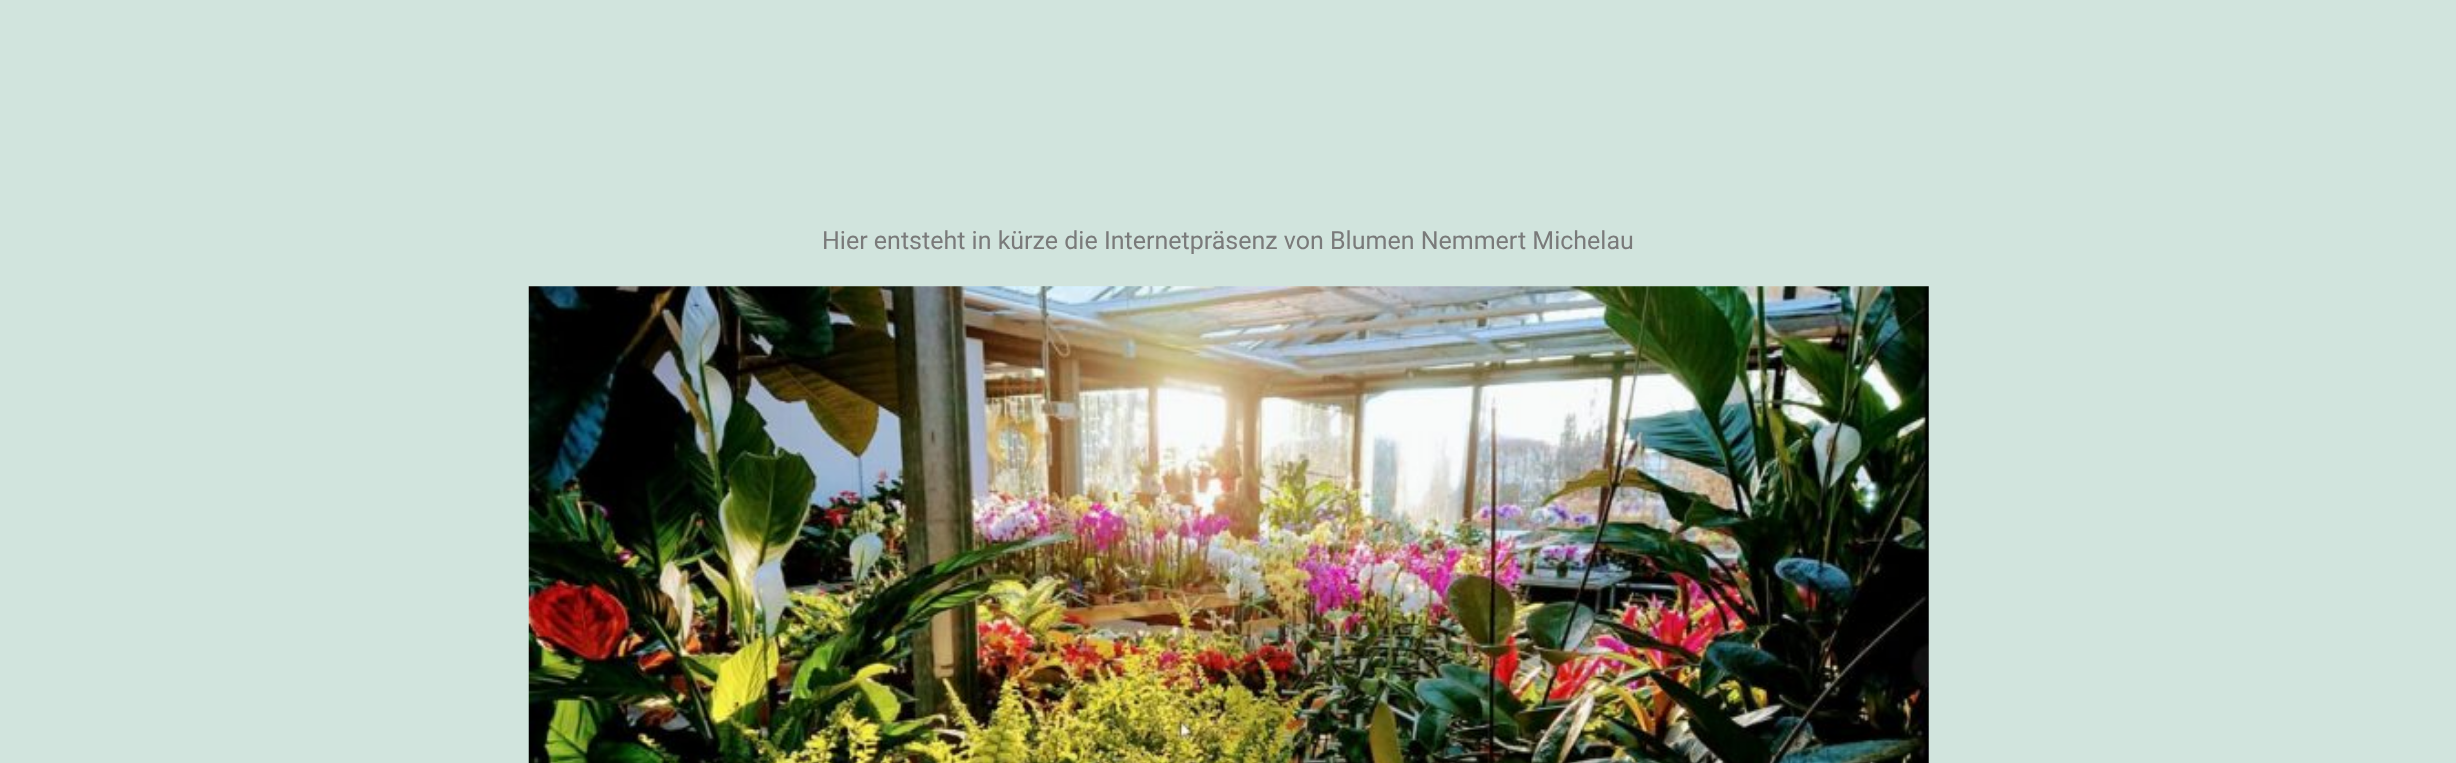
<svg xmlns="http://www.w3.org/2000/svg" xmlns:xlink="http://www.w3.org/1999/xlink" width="2456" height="763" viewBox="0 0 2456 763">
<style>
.cls-1{font:25px Roboto;fill:#7a7a7a}
</style>
<rect width="100%" height="100%" fill="#d1e4dd"/>
<image xlink:href="image0.png" x="528" y="286" width="1401" height="477"/>
<text class="cls-1" x="822" y="249">Hier entsteht in kürze die Internetpräsenz von Blumen Nemmert Michelau</text>
</svg>
